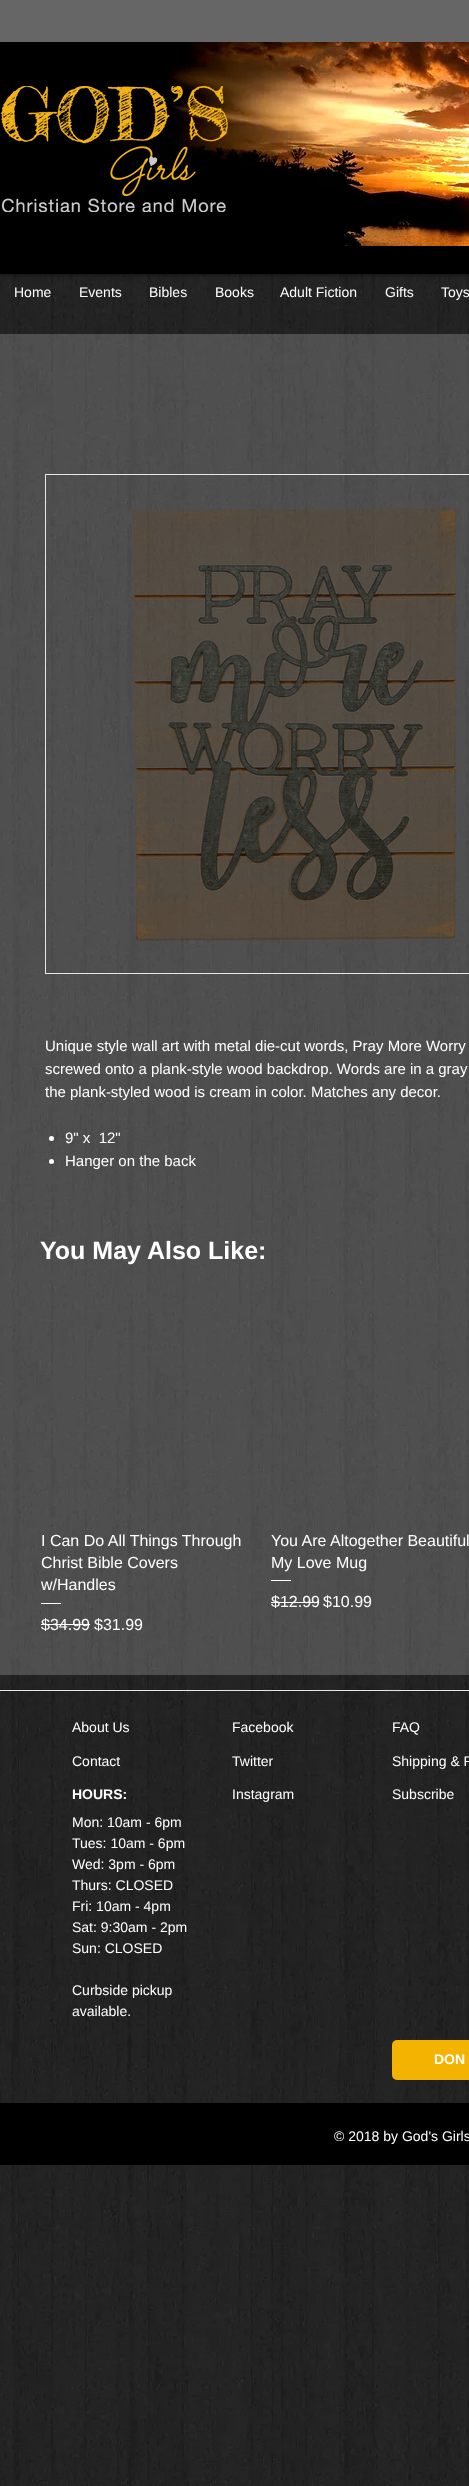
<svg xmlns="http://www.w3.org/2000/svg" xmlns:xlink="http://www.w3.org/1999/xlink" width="469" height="2486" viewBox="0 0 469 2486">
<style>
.cls-1{font:14px Liberation Sans;fill:#ffffff}
.cls-2{font:15px Liberation Sans;fill:#ffffff}
.cls-3{font:bold 25px Liberation Sans;fill:#ffffff}
.cls-4{font:16px Liberation Sans;fill:#ffffff}
.cls-5{font:bold 14px Liberation Sans;fill:#ffffff}
</style>
<rect width="100%" height="100%" fill="#ffffff"/>
<image xlink:href="image0.png" x="0" y="274" width="469" height="2212"/>
<rect fill="#000000" fill-opacity="0.7" filter="blur(2.5px)" x="0" y="0" width="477" height="274"/>
<rect fill="#000000" x="0" y="42" width="469" height="232"/>
<rect fill="#666666" x="0" y="0" width="469" height="42"/>
<image xlink:href="image2.png" x="168" y="42" width="301" height="204"/>
<image xlink:href="image1.png" x="0" y="86" width="228" height="126"/>
<rect fill="#ffffff" fill-opacity="0.2" x="0" y="334" width="469" height="883"/>
<rect fill="none" stroke="#e8e6e6" x="45.5" y="474.5" width="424" height="499"/>
<image xlink:href="image3.png" x="132" y="508" width="324" height="434"/>
<circle fill="#ffffff" cx="51.5" cy="1138.5" r="2.5"/>
<circle fill="#ffffff" cx="51.5" cy="1161.5" r="2.5"/>
<rect fill="#ffffff" fill-opacity="0.2" x="0" y="1217" width="469" height="458"/>
<rect fill="#ffffff" x="41" y="1603" width="20" height="1"/>
<rect fill="#ffffff" x="41" y="1624" width="49" height="1"/>
<rect fill="#ffffff" x="271" y="1580" width="20" height="1"/>
<rect fill="#ffffff" x="271" y="1602" width="48" height="1"/>
<rect fill="#e8e6e6" x="0" y="1690" width="469" height="1"/>
<rect fill="#f4b300" x="392" y="2040" width="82" height="40" rx="5"/>
<rect fill="#000000" x="0" y="2103" width="469" height="62"/>
<text class="cls-1" x="14" y="297">Home</text>
<text class="cls-1" x="79" y="297">Events</text>
<text class="cls-1" x="149" y="297">Bibles</text>
<text class="cls-1" x="215" y="297">Books</text>
<text class="cls-1" x="280" y="297">Adult Fiction</text>
<text class="cls-1" x="385" y="297">Gifts</text>
<text class="cls-1" x="441" y="297">Toys</text>
<text class="cls-2"><tspan x="45" y="1051">Unique style wall art with metal die-cut words, Pray More Worry</tspan><tspan x="45" y="1074">screwed onto a plank-style wood backdrop. Words are in a gray</tspan><tspan x="45" y="1097">the plank-styled wood is cream in color. Matches any decor.</tspan></text>
<text class="cls-2" xml:space="preserve"><tspan x="65" y="1143">9" x  12"</tspan><tspan x="65" y="1166">Hanger on the back</tspan></text>
<text class="cls-3" x="40" y="1259">You May Also Like:</text>
<text class="cls-4"><tspan x="41" y="1546">I Can Do All Things Through</tspan><tspan x="41" y="1568">Christ Bible Covers</tspan><tspan x="41" y="1590">w/Handles</tspan></text>
<text class="cls-4" x="41" y="1630">$34.99</text>
<text class="cls-4" x="94" y="1630">$31.99</text>
<text class="cls-4"><tspan x="271" y="1546">You Are Altogether Beautiful</tspan><tspan x="271" y="1568">My Love Mug</tspan></text>
<text class="cls-4" x="271" y="1607">$12.99</text>
<text class="cls-4" x="323" y="1607">$10.99</text>
<text class="cls-1" x="72" y="1732">About Us</text>
<text class="cls-1" x="72" y="1766">Contact</text>
<text class="cls-5" x="72" y="1799">HOURS:</text>
<text class="cls-1"><tspan x="72" y="1827">Mon: 10am - 6pm</tspan><tspan x="72" y="1848">Tues: 10am - 6pm</tspan><tspan x="72" y="1869">Wed: 3pm - 6pm</tspan><tspan x="72" y="1890">Thurs: CLOSED</tspan><tspan x="72" y="1911">Fri: 10am - 4pm</tspan><tspan x="72" y="1932">Sat: 9:30am - 2pm</tspan><tspan x="72" y="1953">Sun: CLOSED</tspan></text>
<text class="cls-1"><tspan x="72" y="1995">Curbside pickup</tspan><tspan x="72" y="2016">available.</tspan></text>
<text class="cls-1" x="232" y="1732">Facebook</text>
<text class="cls-1" x="232" y="1766">Twitter</text>
<text class="cls-1" x="232" y="1799">Instagram</text>
<text class="cls-1" x="392" y="1732">FAQ</text>
<text class="cls-1" x="392" y="1766">Shipping &amp; R</text>
<text class="cls-1" x="392" y="1799">Subscribe</text>
<text class="cls-5" x="434" y="2064">DON</text>
<text class="cls-1" x="334" y="2141">© 2018 by God's Girls</text>
</svg>
